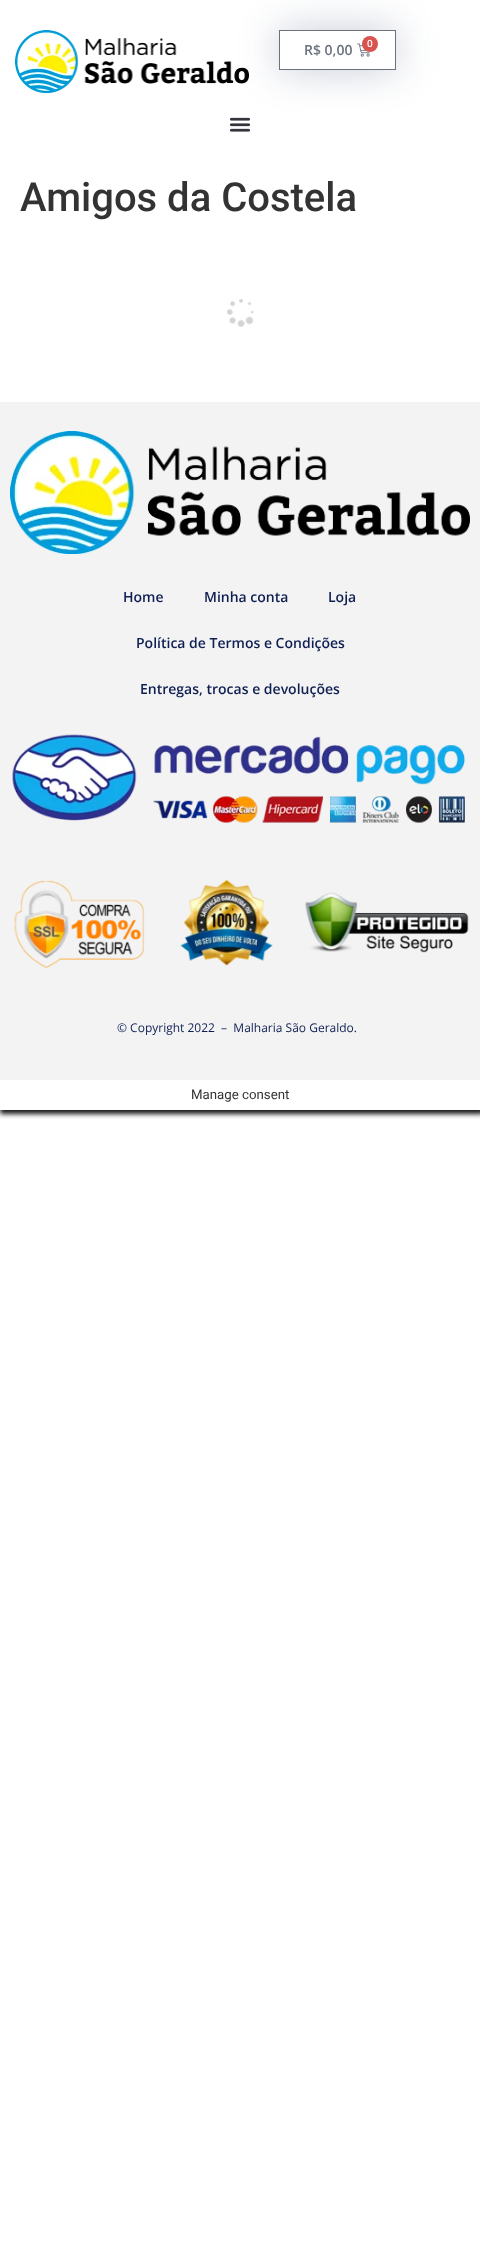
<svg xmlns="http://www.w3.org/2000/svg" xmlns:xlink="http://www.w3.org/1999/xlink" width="480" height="2265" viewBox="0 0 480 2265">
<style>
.cls-1{font:600 14px Open Sans;fill:#69727d}
.cls-2{font:600 10px Open Sans;fill:#ffffff}
.cls-3{font:500 40px Roboto;fill:#333333}
.cls-4{font:600 14px Open Sans;fill:#0f1f52}
.cls-5{font:12px Open Sans;fill:#0f1f52}
.cls-6{font:13.25px Roboto;fill:#333333}
</style>
<defs>
<clipPath id="clip1"><path d="M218 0H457V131H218ZM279 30H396V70H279Z" clip-rule="evenodd"/></clipPath>
<clipPath id="clip2"><rect x="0" y="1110" width="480" height="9"/></clipPath>
</defs>
<rect width="100%" height="100%" fill="#ffffff"/>
<image xlink:href="image0.png" x="15" y="30" width="234" height="63"/>
<g clip-path="url(#clip1)">
<rect fill="#0f1f52" fill-opacity="0.23" filter="blur(20px)" x="279" y="30" width="117" height="40"/>
</g>
<rect fill="none" stroke="#69727d" x="279.5" y="30.5" width="116" height="39"/>
<image xlink:href="image1.png" x="357" y="43" width="13" height="14"/>
<circle fill="#d9534f" cx="370" cy="44" r="8"/>
<image xlink:href="image2.png" x="229" y="117" width="22" height="15"/>
<image xlink:href="image3.png" x="227" y="299" width="27" height="28"/>
<g clip-path="url(#clip2)">
<rect fill="#161616" filter="blur(2.5px)" x="0" y="1080" width="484" height="34"/>
</g>
<rect fill="#f3f3f3" x="0" y="402" width="480" height="678"/>
<image xlink:href="image4.png" x="10" y="431" width="460" height="123"/>
<image xlink:href="image5.png" x="12" y="734" width="453" height="89"/>
<image xlink:href="image6.png" x="14" y="879" width="455" height="90"/>
<text class="cls-1" x="304" y="55">R$ 0,00</text>
<text class="cls-2" x="367" y="47">0</text>
<text class="cls-3" x="20" y="211">Amigos da Costela</text>
<text class="cls-4" x="123" y="602">Home</text>
<text class="cls-4" x="204" y="602">Minha conta</text>
<text class="cls-4" x="328" y="602">Loja</text>
<text class="cls-4" x="136" y="648">Política de Termos e Condições</text>
<text class="cls-4" x="140" y="694">Entregas, trocas e devoluções</text>
<text class="cls-5" xml:space="preserve" x="117" y="1032">© Copyright 2022  –  Malharia São Geraldo.</text>
<text class="cls-6" x="191" y="1099">Manage consent</text>
</svg>
